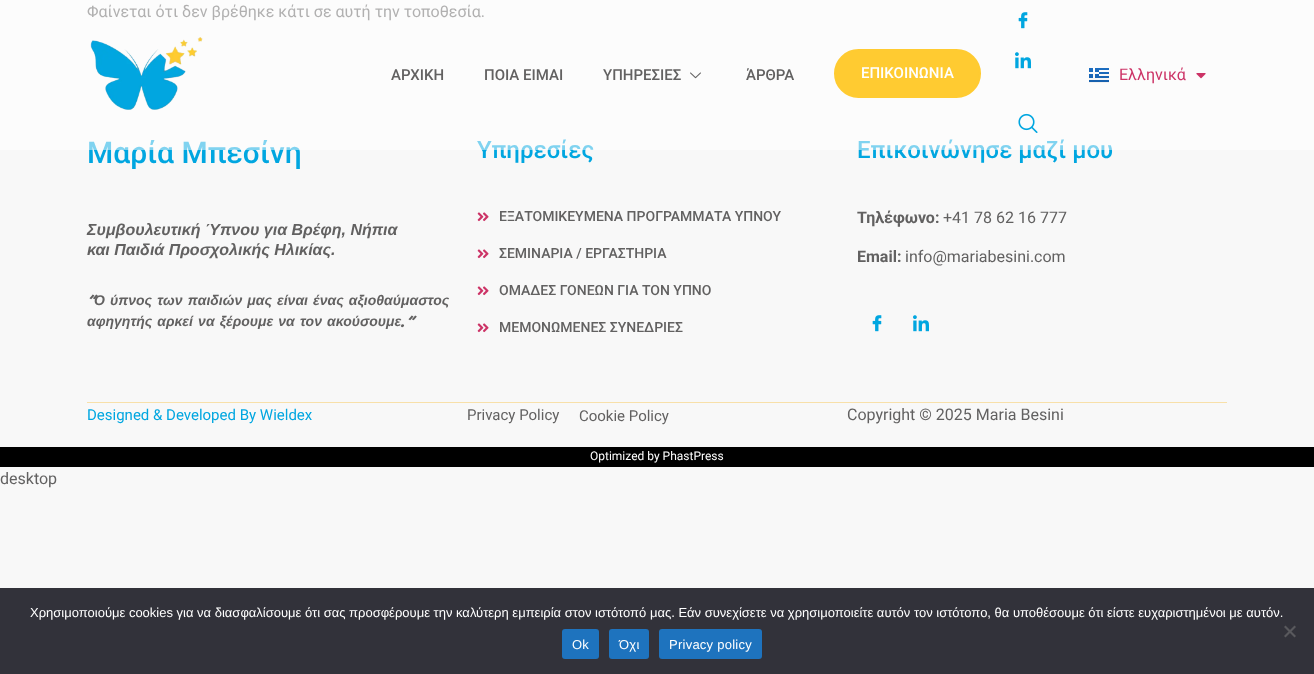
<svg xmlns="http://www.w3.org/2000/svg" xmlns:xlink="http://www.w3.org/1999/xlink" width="1314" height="674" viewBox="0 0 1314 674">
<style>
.cls-1{font:16px Roboto;fill:#626161}
.cls-2{font:500 30px Roboto;fill:#00a6e0}
.cls-3{font:italic bold 16px Liberation Sans;fill:#626161}
.cls-4{font:italic bold 14px Vampiro One;fill:#626161}
.cls-5{font:italic bold 14px Liberation Sans;fill:#626161}
.cls-6{font:500 24px Roboto;fill:#00a6e0}
.cls-7{font:500 14px Roboto;fill:#626161}
.cls-8{font:500 15px Roboto;fill:#626161}
.cls-9{font:16px Roboto;fill:#cc3366}
.cls-10{font:500 15px Roboto;fill:#ffffff}
.cls-11{font:bold 16px Roboto;fill:#626161}
.cls-12{font:15px Roboto;fill:#00a6e0}
.cls-13{font:15px Roboto;fill:#626161}
.cls-14{font:12px Roboto;fill:#ffffff}
.cls-15{font:13px Liberation Sans;fill:#ffffff}
.cls-16{font:13px Liberation Sans;letter-spacing:0.25px;fill:#ffffff}
</style>
<rect width="100%" height="100%" fill="#f8f8f8"/>
<rect fill="#f8e0a9" x="87" y="402" width="1140" height="1"/>
<image xlink:href="image7.png" x="477" y="212" width="12" height="10"/>
<image xlink:href="image7.png" x="477" y="249" width="12" height="10"/>
<image xlink:href="image7.png" x="477" y="286" width="12" height="10"/>
<image xlink:href="image7.png" x="477" y="323" width="12" height="10"/>
<image xlink:href="image8.png" x="872" y="315" width="10" height="17"/>
<image xlink:href="image9.png" x="913" y="315" width="16" height="17"/>
<rect fill="#000000" x="0" y="447" width="1314" height="20"/>
<rect fill="#32323a" x="0" y="588" width="1314" height="86"/>
<path fill="#59595d" d="M1294.5 625.5L1296 627L1285.5 637.5L1284 636Z"/>
<path fill="#59595d" d="M1284 627L1285.5 625.5L1296 636L1294.5 637.5Z"/>
<rect fill="#1e73be" x="562" y="629" width="37" height="30" rx="3"/>
<rect fill="#1e73be" x="609" y="629" width="40" height="30" rx="3"/>
<rect fill="#1e73be" x="659" y="629" width="103" height="30" rx="3"/>
<text class="cls-1" x="87" y="17">Φαίνεται ότι δεν βρέθηκε κάτι σε αυτή την τοποθεσία.</text>
<text class="cls-2" x="87" y="163">Μαρία Μπεσίνη</text>
<text class="cls-3"><tspan x="87" y="235">Συμβουλευτική Ύπνου για Βρέφη, Νήπια</tspan><tspan x="87" y="255">και Παιδιά Προσχολικής Ηλικίας.</tspan></text>
<text class="cls-4" x="87" y="305">"</text>
<text class="cls-5" x="94" y="305" word-spacing="1.25">Ο ύπνος των παιδιών μας είναι ένας αξιοθαύμαστος</text>
<text class="cls-5" x="87" y="326" word-spacing="1.25">αφηγητής αρκεί να ξέρουμε να τον ακούσουμε</text>
<text class="cls-4" x="401" y="326">."</text>
<text class="cls-6" x="477" y="158">Υπηρεσίες</text>
<text class="cls-7" x="499" y="221">ΕΞΑΤΟΜΙΚΕΥΜΕΝΑ ΠΡΟΓΡΑΜΜΑΤΑ ΥΠΝΟΥ</text>
<text class="cls-7" x="499" y="258">ΣΕΜΙΝΑΡΙΑ / ΕΡΓΑΣΤΗΡΙΑ</text>
<text class="cls-7" x="499" y="295">ΟΜΑΔΕΣ ΓΟΝΕΩΝ ΓΙΑ ΤΟΝ ΥΠΝΟ</text>
<text class="cls-7" x="499" y="332">ΜΕΜΟΝΩΜΕΝΕΣ ΣΥΝΕΔΡΙΕΣ</text>
<text class="cls-6" x="857" y="158">Επικοινώνησε μαζί μου</text>
<rect fill="#ffffff" fill-opacity="0.5" x="0" y="0" width="1314" height="150"/>
<text class="cls-8" x="746" y="80">ΆΡΘΡΑ</text>
<image xlink:href="image1.png" x="690" y="72" width="11" height="7"/>
<text class="cls-8" x="603" y="80">ΥΠΗΡΕΣΙΕΣ</text>
<text class="cls-8" x="484" y="80">ΠΟΙΑ ΕΙΜΑΙ</text>
<text class="cls-8" x="391" y="80">ΑΡΧΙΚΗ</text>
<image xlink:href="image6.png" x="1196" y="73" width="10" height="6"/>
<text class="cls-9" x="1119" y="80">Ελληνικά</text>
<image xlink:href="image5.png" x="1089" y="68" width="20" height="15"/>
<image xlink:href="image4.png" x="1018" y="113" width="20" height="20"/>
<image xlink:href="image3.png" x="1015" y="52" width="16" height="17"/>
<image xlink:href="image2.png" x="1018" y="12" width="10" height="17"/>
<rect fill="#ffcb31" stroke="#ffcb31" stroke-width="2" x="835" y="50" width="145" height="47" rx="23.5"/>
<text class="cls-10" x="861" y="78">ΕΠΙΚΟΙΝΩΝΙΑ</text>
<image xlink:href="image0.png" x="90" y="37" width="113" height="73"/>
<text class="cls-11" x="857" y="223">Τηλέφωνο:</text>
<text class="cls-1" x="943" y="223">+41 78 62 16 777</text>
<text class="cls-11" x="857" y="262">Email:</text>
<text class="cls-1" x="905" y="262">info@mariabesini.com</text>
<text class="cls-12" x="87" y="420">Designed &amp; Developed By Wieldex</text>
<text class="cls-13" x="467" y="420">Privacy Policy</text>
<text class="cls-13" x="579" y="421">Cookie Policy</text>
<text class="cls-1" x="847" y="420">Copyright © 2025 Maria Besini</text>
<text class="cls-14" x="590" y="460">Optimized by PhastPress</text>
<text class="cls-1" x="0" y="484">desktop</text>
<text class="cls-15" x="30" y="617">Χρησιμοποιούμε cookies για να διασφαλίσουμε ότι σας προσφέρουμε την καλύτερη εμπειρία στον ιστότοπό μας. Εάν συνεχίσετε να χρησιμοποιείτε αυτόν τον ιστότοπο, θα υποθέσουμε ότι είστε ευχαριστημένοι με αυτόν.</text>
<text class="cls-16" x="572" y="649">Ok</text>
<text class="cls-16" x="619" y="649">Όχι</text>
<text class="cls-16" x="669" y="649">Privacy policy</text>
</svg>
